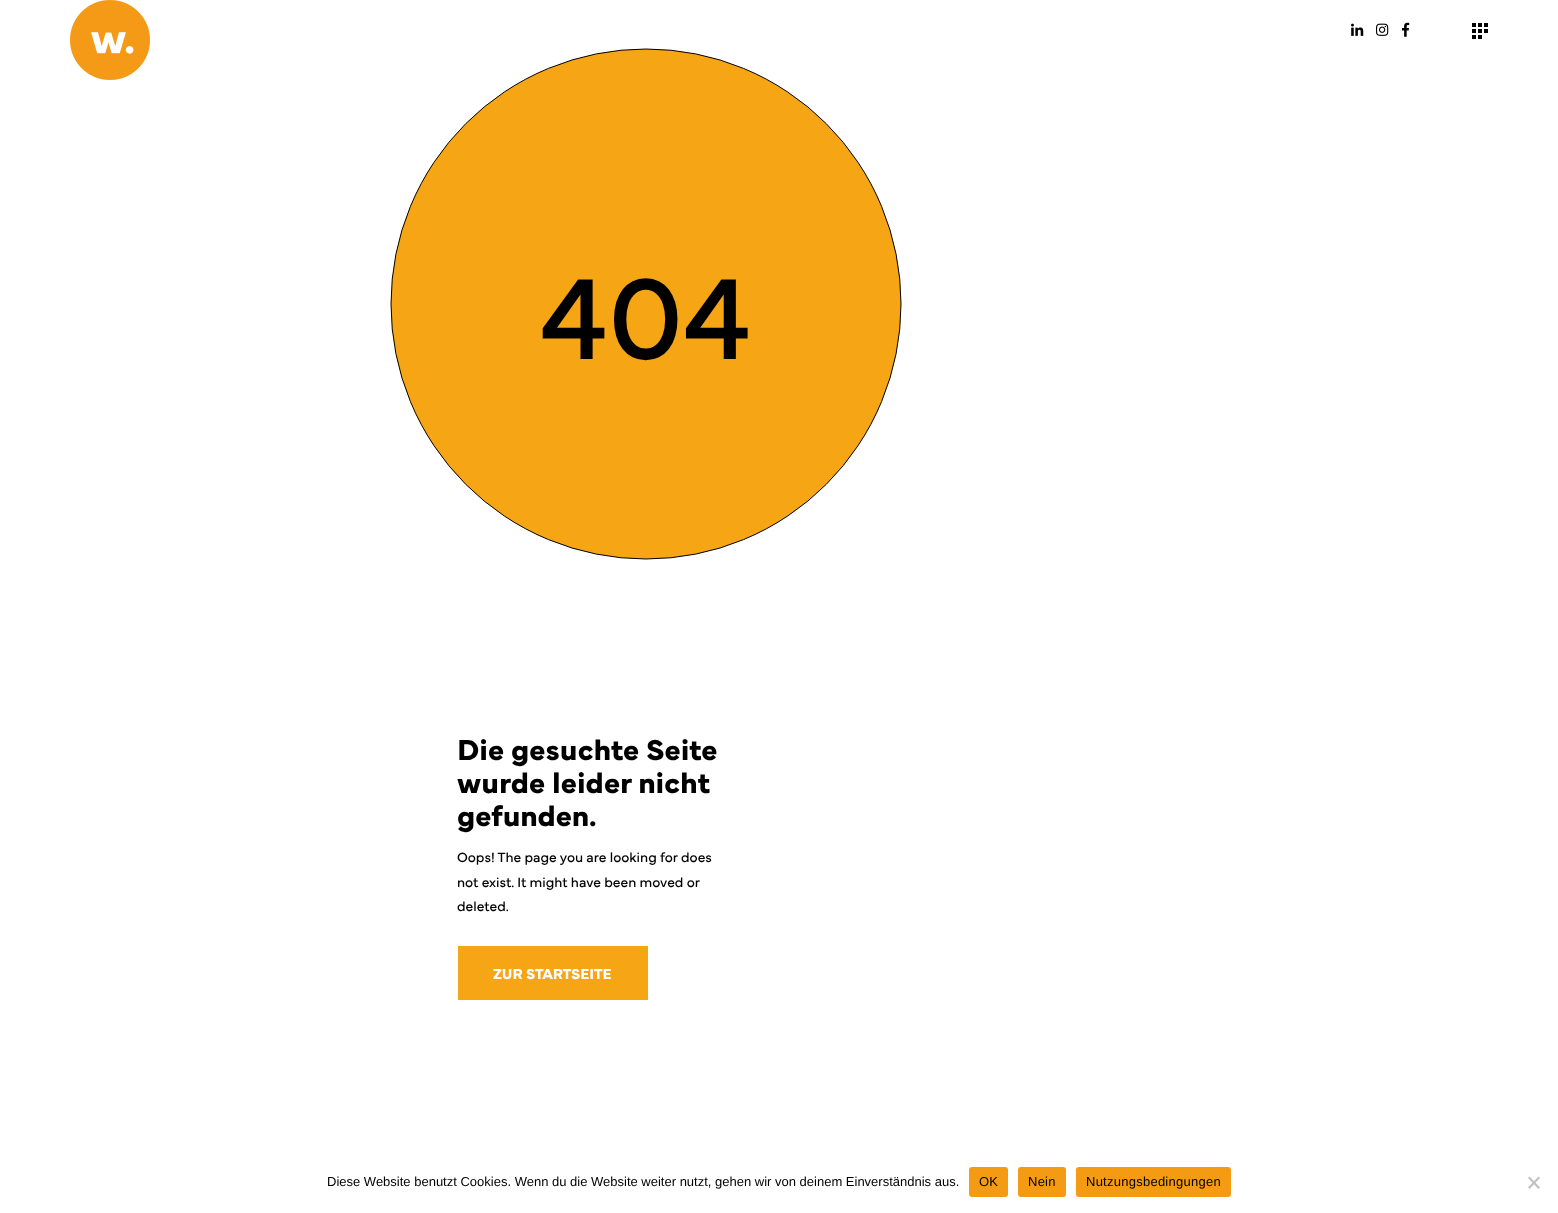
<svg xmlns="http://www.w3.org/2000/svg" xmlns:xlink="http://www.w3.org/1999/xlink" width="1558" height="1213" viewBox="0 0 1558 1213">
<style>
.cls-1{font:120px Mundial;fill:#000000}
.cls-2{font:bold 30px Mundial;fill:#000000}
.cls-3{font:14px Mundial;fill:#000000}
.cls-4{font:bold 15px Mundial;fill:#ffffff}
.cls-5{font:13px Liberation Sans;fill:#000000}
.cls-6{font:13px Liberation Sans;letter-spacing:0.25px;fill:#000000}
</style>
<rect width="100%" height="100%" fill="#ffffff"/>
<image xlink:href="image0.png" x="70" y="0" width="80" height="80"/>
<image xlink:href="image1.png" x="1351" y="23" width="13" height="13"/>
<image xlink:href="image2.png" x="1376" y="23" width="13" height="13"/>
<image xlink:href="image3.png" x="1402" y="22" width="8" height="15"/>
<image xlink:href="image4.png" x="1472" y="23" width="16" height="16"/>
<circle fill="#f6a515" stroke="#000000" cx="646" cy="304" r="255"/>
<rect fill="#f6a515" x="458" y="946" width="190" height="54"/>
<rect fill="#f59a13" x="969" y="1167" width="39" height="30" rx="3"/>
<rect fill="#f59a13" x="1018" y="1167" width="48" height="30" rx="3"/>
<rect fill="#f59a13" x="1076" y="1167" width="155" height="30" rx="3"/>
<path fill="#c0c0c0" d="M1538.5 1176.5L1540 1178L1529.5 1189L1528 1187.5Z"/>
<path fill="#c0c0c0" d="M1528 1178L1529.5 1176.5L1540 1187.5L1538.5 1189Z"/>
<text class="cls-1" x="540" y="359">404</text>
<text class="cls-2"><tspan x="457" y="760">Die gesuchte Seite</tspan><tspan x="457" y="793">wurde leider nicht</tspan><tspan x="457" y="826">gefunden.</tspan></text>
<text class="cls-3"><tspan x="457" y="862">Oops! The page you are looking for does</tspan><tspan x="457" y="887">not exist. It might have been moved or</tspan><tspan x="457" y="911">deleted.</tspan></text>
<text class="cls-4" x="493" y="979">ZUR STARTSEITE</text>
<text class="cls-5" x="327" y="1186">Diese Website benutzt Cookies. Wenn du die Website weiter nutzt, gehen wir von deinem Einverständnis aus.</text>
<text class="cls-6" x="979" y="1186">OK</text>
<text class="cls-6" x="1028" y="1186">Nein</text>
<text class="cls-6" x="1086" y="1186">Nutzungsbedingungen</text>
</svg>
